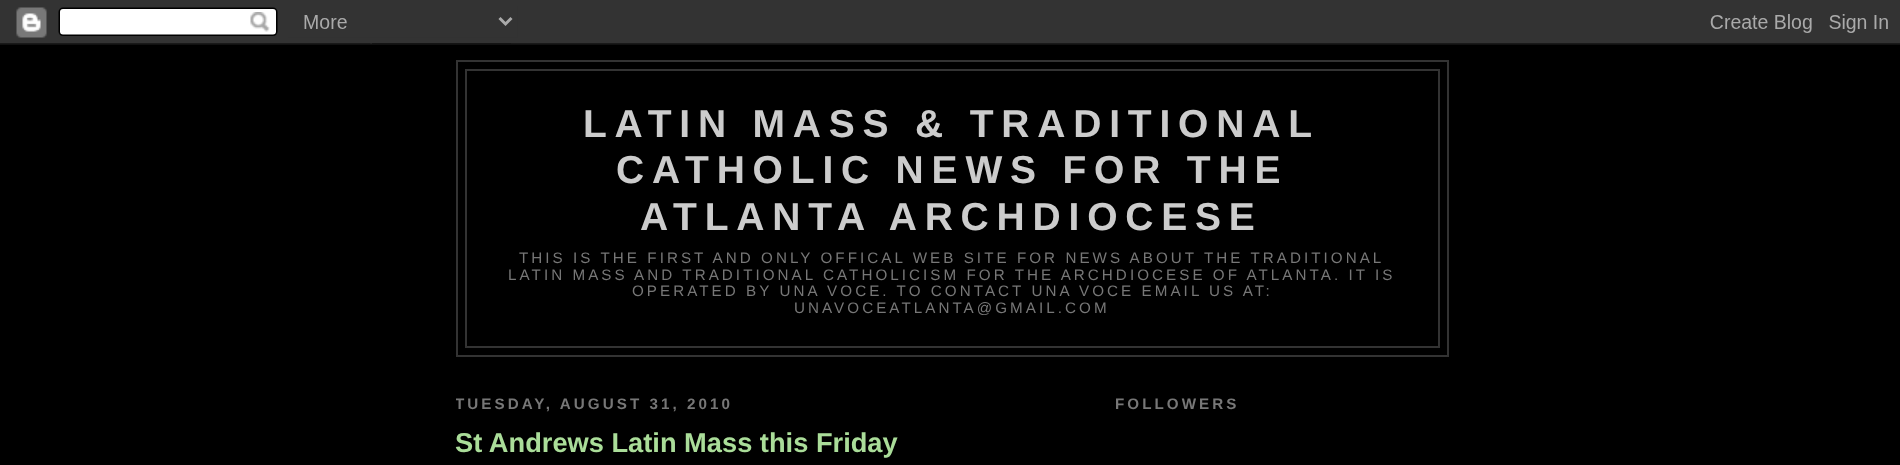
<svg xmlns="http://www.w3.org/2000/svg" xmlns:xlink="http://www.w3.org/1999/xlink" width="1900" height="465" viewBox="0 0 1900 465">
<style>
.cls-1{font:bold 39px Liberation Sans;letter-spacing:7.8px;fill:#cccccc}
.cls-2{font:15.2px Liberation Sans;letter-spacing:3.05px;fill:#777777}
.cls-3{font:bold 15.2px Liberation Sans;letter-spacing:3.05px;fill:#777777}
.cls-4{font:bold 27.25px Liberation Sans;fill:#aadd99}
</style>
<defs>
<clipPath id="clip1"><rect x="456" y="372" width="615" height="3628"/></clipPath>
</defs>
<rect width="100%" height="100%" fill="#000000"/>
<image xlink:href="image0.png" x="0" y="0" width="1900" height="45"/>
<rect fill="none" stroke="#333333" stroke-width="2" x="457" y="61" width="991" height="295"/>
<rect fill="none" stroke="#333333" stroke-width="2" x="466" y="70" width="973" height="277"/>
<text class="cls-1" x="583" y="137">LATIN MASS &amp; TRADITIONAL</text>
<text class="cls-1" x="616" y="183">CATHOLIC NEWS FOR THE</text>
<text class="cls-1" x="640" y="230">ATLANTA ARCHDIOCESE</text>
<text class="cls-2" x="519" y="263">THIS IS THE FIRST AND ONLY OFFICAL WEB SITE FOR NEWS ABOUT THE TRADITIONAL</text>
<text class="cls-2" x="508" y="280">LATIN MASS AND TRADITIONAL CATHOLICISM FOR THE ARCHDIOCESE OF ATLANTA. IT IS</text>
<text class="cls-2" x="632" y="296">OPERATED BY UNA VOCE. TO CONTACT UNA VOCE EMAIL US AT:</text>
<text class="cls-2" x="794" y="313">UNAVOCEATLANTA@GMAIL.COM</text>
<g clip-path="url(#clip1)">
<text class="cls-3" x="455" y="409">TUESDAY, AUGUST 31, 2010</text>
</g>
<text class="cls-4" x="455" y="452">St Andrews Latin Mass this Friday</text>
<text class="cls-3" x="1115" y="409">FOLLOWERS</text>
</svg>
